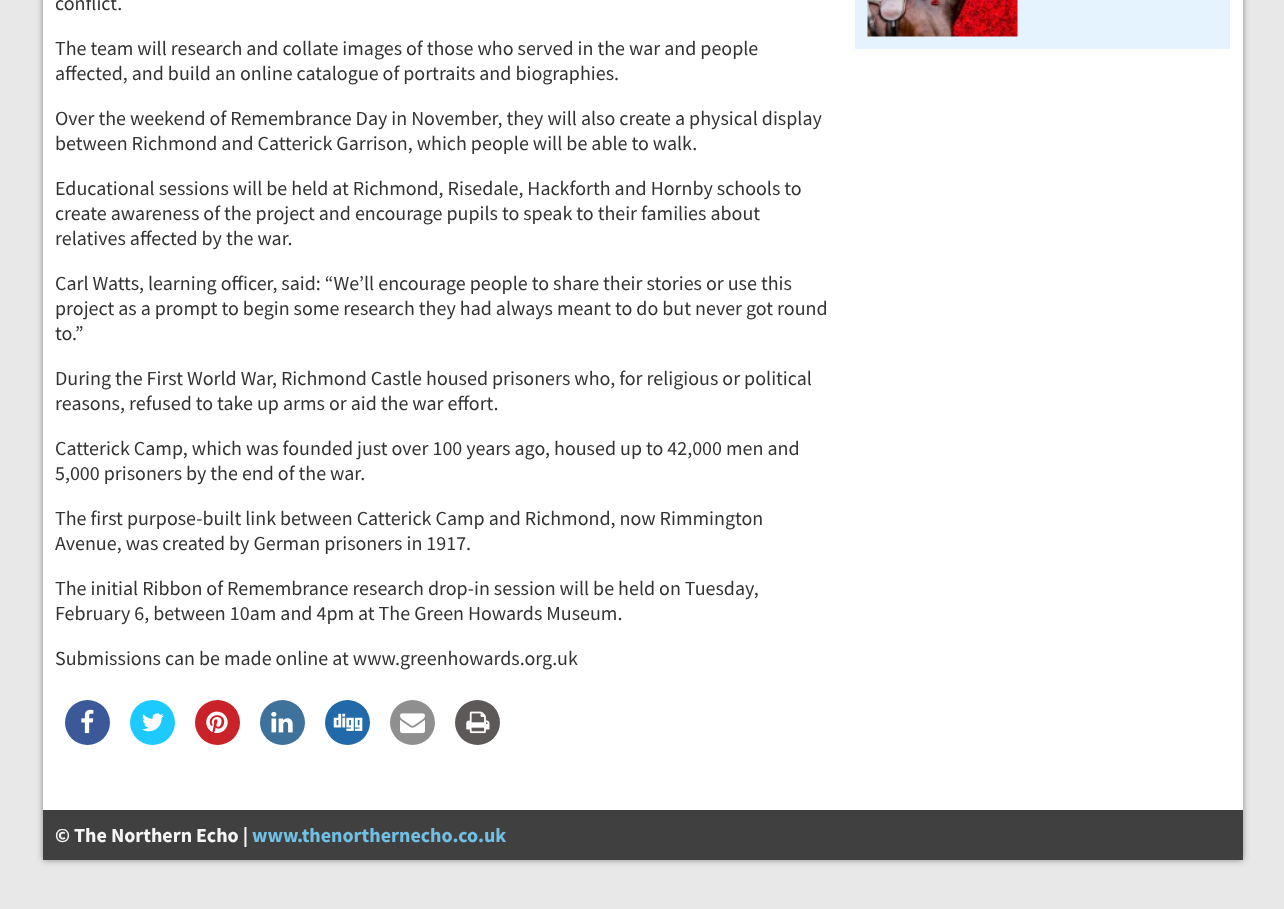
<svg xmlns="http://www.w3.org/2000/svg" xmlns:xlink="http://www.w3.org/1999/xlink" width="1284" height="909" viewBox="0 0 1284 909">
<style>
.cls-1{font:20px Source Sans Pro;fill:#333333}
.cls-2{font:bold 20px Source Sans Pro;fill:#f5f5f5}
.cls-3{font:bold 20px Source Sans Pro;fill:#71c0e3}
</style>
<rect width="100%" height="100%" fill="#e8e8e8"/>
<rect fill="#888888" filter="blur(3px)" x="43" y="-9" width="1200" height="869"/>
<rect fill="#ffffff" x="43" y="0" width="1200" height="810"/>
<circle fill="#3b5998" cx="87.5" cy="722.5" r="22.5"/>
<image xlink:href="image0.png" x="81" y="709" width="13" height="25"/>
<circle fill="#1dcaff" cx="152.5" cy="722.5" r="22.5"/>
<image xlink:href="image1.png" x="142" y="713" width="22" height="19"/>
<circle fill="#c92228" cx="217.5" cy="722.5" r="22.5"/>
<image xlink:href="image2.png" x="206" y="711" width="22" height="22"/>
<circle fill="#3f729b" cx="282.5" cy="722.5" r="22.5"/>
<image xlink:href="image3.png" x="271" y="711" width="22" height="22"/>
<circle fill="#2169a8" cx="347.5" cy="722.5" r="22.5"/>
<image xlink:href="image4.png" x="333" y="713" width="30" height="18"/>
<circle fill="#8f8f8f" cx="412.5" cy="722.5" r="22.5"/>
<image xlink:href="image5.png" x="400" y="713" width="25" height="21"/>
<circle fill="#5e5959" cx="477.5" cy="722.5" r="22.5"/>
<image xlink:href="image6.png" x="466" y="711" width="24" height="23"/>
<rect fill="#e5f2ff" x="855" y="0" width="375" height="49"/>
<image xlink:href="image7.png" x="867" y="0" width="151" height="37"/>
<rect fill="#404040" x="43" y="810" width="1200" height="50"/>
<text class="cls-1" x="55" y="10">conflict.</text>
<text class="cls-1"><tspan x="55" y="55">The team will research and collate images of those who served in the war and people</tspan><tspan x="55" y="80">affected, and build an online catalogue of portraits and biographies.</tspan></text>
<text class="cls-1"><tspan x="55" y="125">Over the weekend of Remembrance Day in November, they will also create a physical display</tspan><tspan x="55" y="150">between Richmond and Catterick Garrison, which people will be able to walk.</tspan></text>
<text class="cls-1"><tspan x="55" y="195">Educational sessions will be held at Richmond, Risedale, Hackforth and Hornby schools to</tspan><tspan x="55" y="220">create awareness of the project and encourage pupils to speak to their families about</tspan><tspan x="55" y="245">relatives affected by the war.</tspan></text>
<text class="cls-1"><tspan x="55" y="290">Carl Watts, learning officer, said: “We’ll encourage people to share their stories or use this</tspan><tspan x="55" y="315">project as a prompt to begin some research they had always meant to do but never got round</tspan><tspan x="55" y="340">to.”</tspan></text>
<text class="cls-1"><tspan x="55" y="385">During the First World War, Richmond Castle housed prisoners who, for religious or political</tspan><tspan x="55" y="410">reasons, refused to take up arms or aid the war effort.</tspan></text>
<text class="cls-1"><tspan x="55" y="455">Catterick Camp, which was founded just over 100 years ago, housed up to 42,000 men and</tspan><tspan x="55" y="480">5,000 prisoners by the end of the war.</tspan></text>
<text class="cls-1"><tspan x="55" y="525">The first purpose-built link between Catterick Camp and Richmond, now Rimmington</tspan><tspan x="55" y="550">Avenue, was created by German prisoners in 1917.</tspan></text>
<text class="cls-1"><tspan x="55" y="595">The initial Ribbon of Remembrance research drop-in session will be held on Tuesday,</tspan><tspan x="55" y="620">February 6, between 10am and 4pm at The Green Howards Museum.</tspan></text>
<text class="cls-1" x="55" y="665">Submissions can be made online at www.greenhowards.org.uk</text>
<text class="cls-2" x="55" y="842">© The Northern Echo |</text>
<text class="cls-3" x="252" y="842">www.thenorthernecho.co.uk</text>
</svg>
